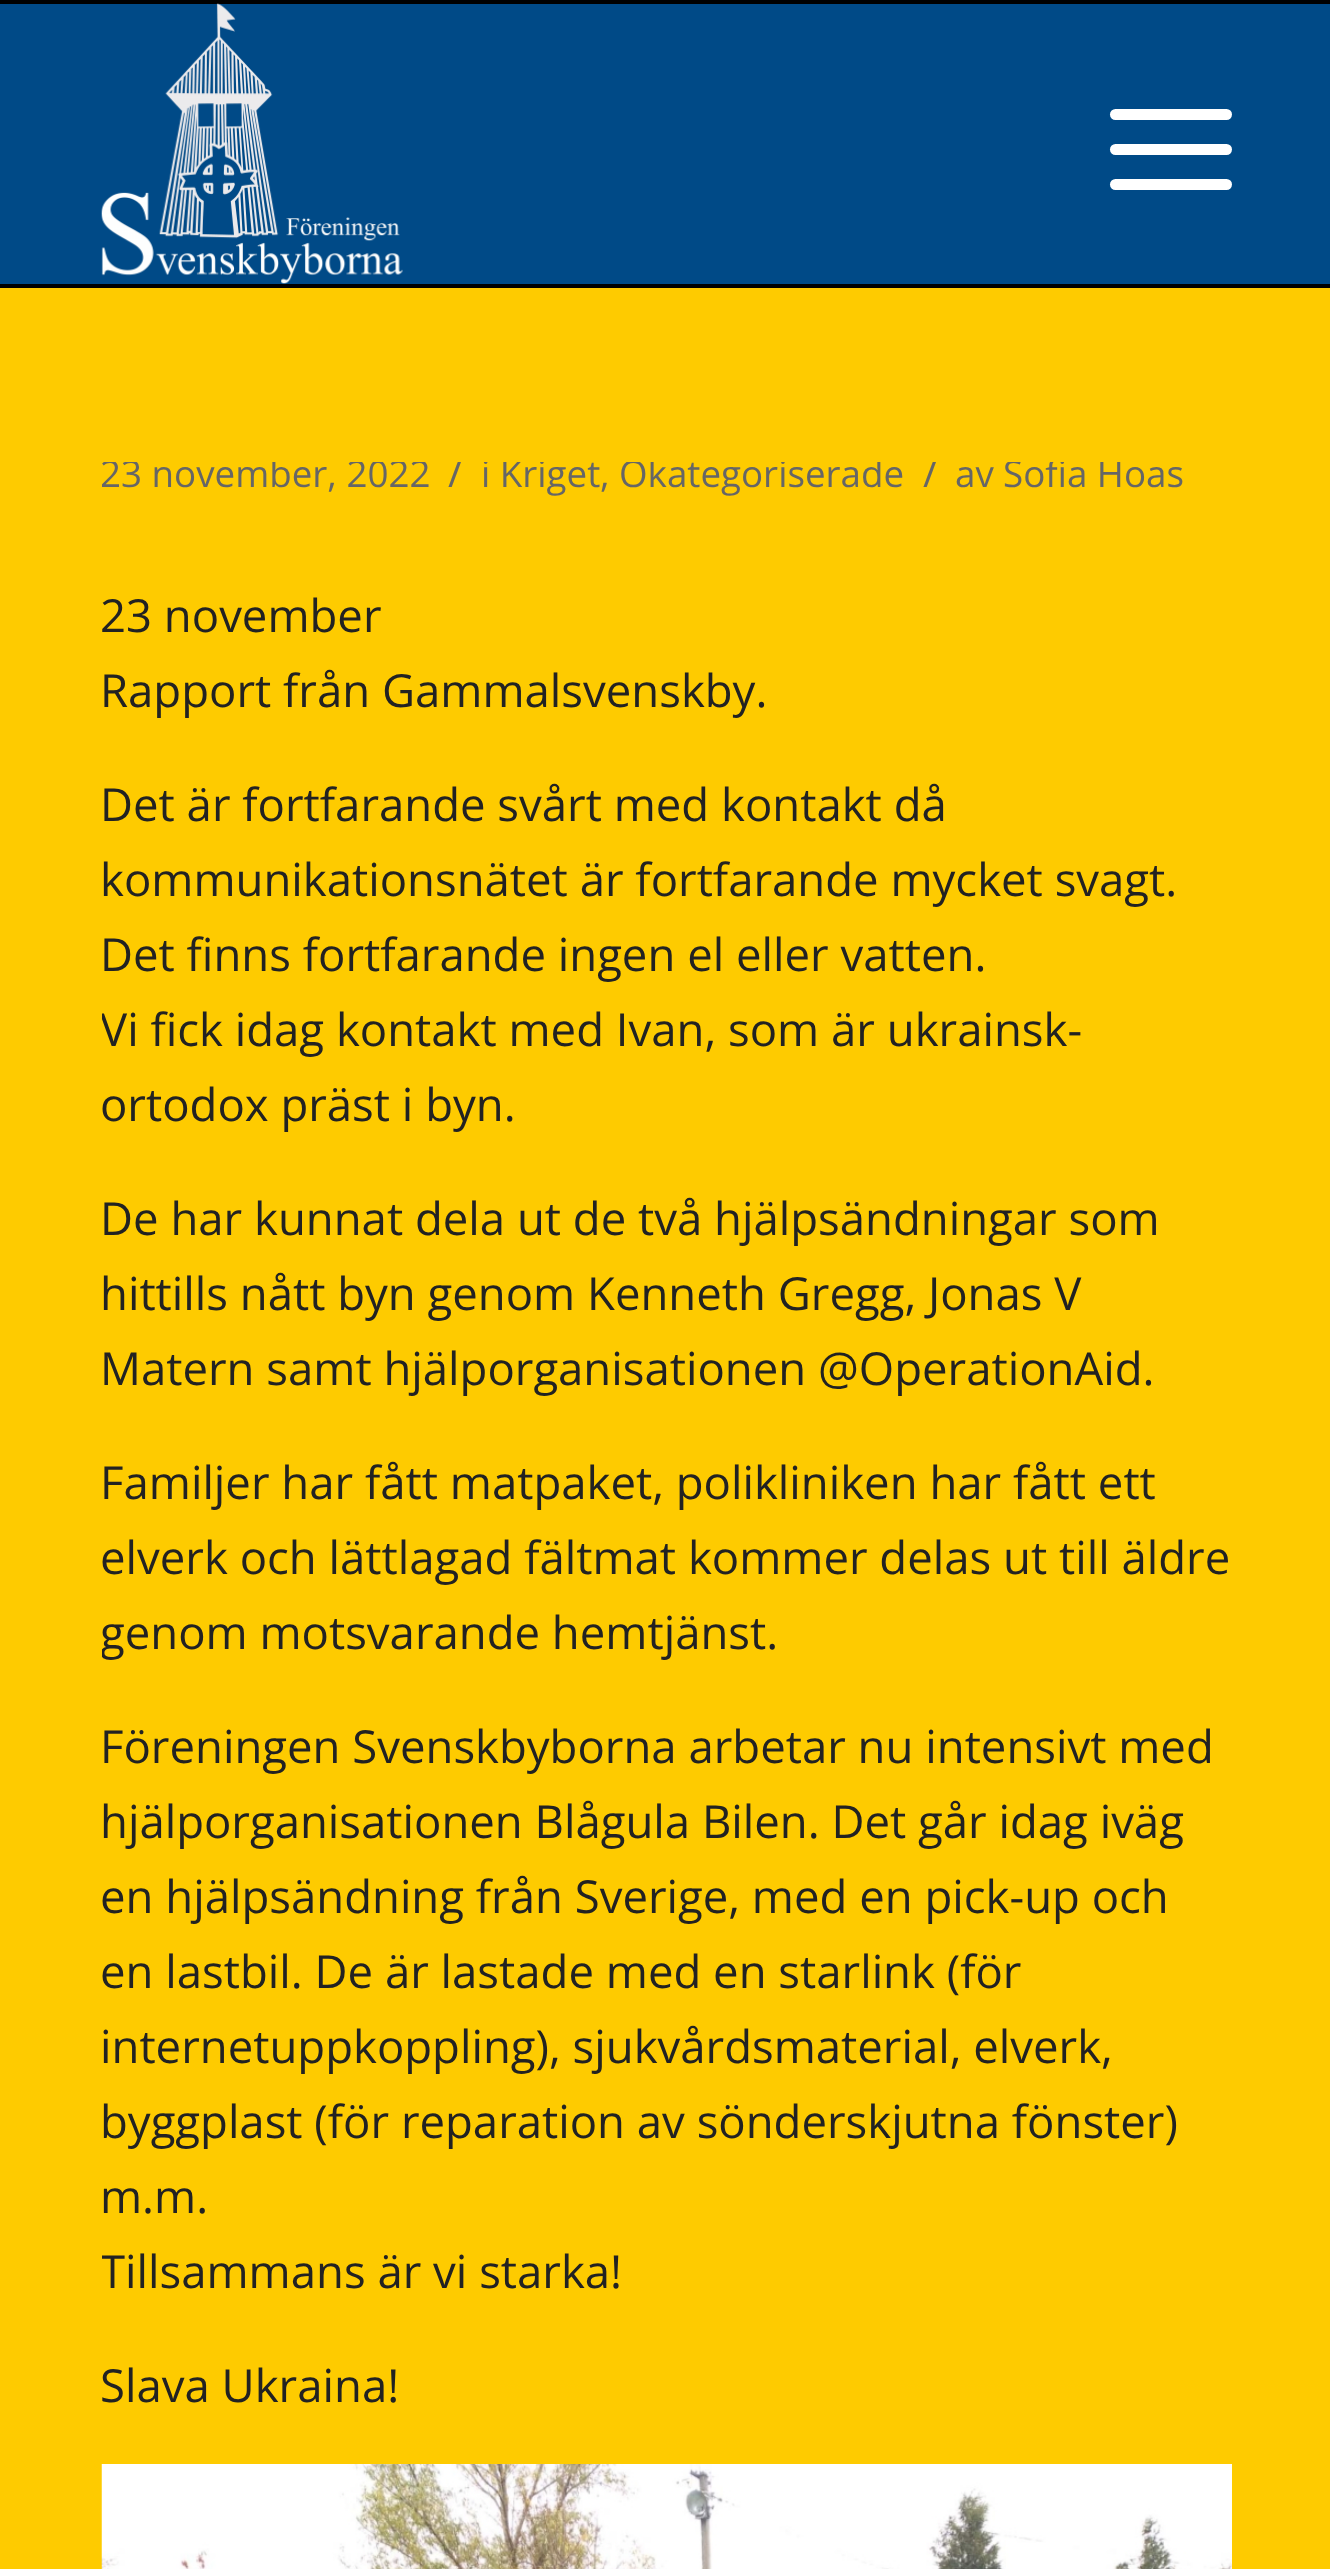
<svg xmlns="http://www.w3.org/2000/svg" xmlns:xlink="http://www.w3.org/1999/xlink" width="1330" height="2569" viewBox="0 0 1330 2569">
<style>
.cls-1{font:36.75px Open Sans;fill:#666666}
.cls-2{font:41px Open Sans;fill:#666666}
.cls-3{font:45.5px Open Sans;fill:#222222}
</style>
<defs>
<clipPath id="clip1"><rect x="102" y="462" width="1130" height="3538"/></clipPath>
</defs>
<rect width="100%" height="100%" fill="#004a87"/>
<rect fill="#000000" x="0" y="0" width="1330" height="4"/>
<rect fill="#000000" x="0" y="284" width="1330" height="4"/>
<image xlink:href="image0.png" x="101" y="3" width="302" height="281"/>
<rect fill="#ffffff" x="1110" y="144" width="122" height="11" rx="5.5"/>
<rect fill="#ffffff" x="1110" y="109" width="122" height="11" rx="5.5"/>
<rect fill="#ffffff" x="1110" y="179" width="122" height="11" rx="5.5"/>
<rect fill="#fecb00" x="0" y="288" width="1330" height="2281"/>
<image xlink:href="image1.png" x="101" y="2464" width="1131" height="105"/>
<g clip-path="url(#clip1)">
<text class="cls-1" x="100" y="487">23 november, 2022</text>
<text class="cls-2" x="448" y="487">/</text>
<text class="cls-1" x="481" y="487">i Kriget</text>
</g>
<text class="cls-1" x="600" y="487">,</text>
<g clip-path="url(#clip1)">
<text class="cls-1" x="619" y="487">Okategoriserade</text>
<text class="cls-2" x="923" y="487">/</text>
</g>
<text class="cls-1" x="955" y="487">av</text>
<g clip-path="url(#clip1)">
<text class="cls-1" x="1003" y="487">Sofia Hoas</text>
</g>
<text class="cls-3"><tspan x="100" y="632">23 november</tspan><tspan x="100" y="707">Rapport från Gammalsvenskby.</tspan></text>
<text class="cls-3"><tspan x="100" y="821">Det är fortfarande svårt med kontakt då</tspan><tspan x="100" y="896">kommunikationsnätet är fortfarande mycket svagt.</tspan><tspan x="100" y="971">Det finns fortfarande ingen el eller vatten.</tspan></text>
<g clip-path="url(#clip1)">
<text class="cls-3" x="100" y="1046">Vi fick idag kontakt med Ivan, som är ukrainsk-</text>
</g>
<text class="cls-3" x="100" y="1121">ortodox präst i byn.</text>
<text class="cls-3"><tspan x="100" y="1235">De har kunnat dela ut de två hjälpsändningar som</tspan><tspan x="100" y="1310">hittills nått byn genom Kenneth Gregg, Jonas V</tspan><tspan x="100" y="1385">Matern samt hjälporganisationen @OperationAid.</tspan></text>
<text class="cls-3"><tspan x="100" y="1499">Familjer har fått matpaket, polikliniken har fått ett</tspan><tspan x="100" y="1574">elverk och lättlagad fältmat kommer delas ut till äldre</tspan></text>
<g clip-path="url(#clip1)">
<text class="cls-3" x="100" y="1649">genom motsvarande hemtjänst.</text>
</g>
<text class="cls-3"><tspan x="100" y="1763">Föreningen Svenskbyborna arbetar nu intensivt med</tspan><tspan x="100" y="1838">hjälporganisationen Blågula Bilen. Det går idag iväg</tspan><tspan x="100" y="1913">en hjälpsändning från Sverige, med en pick-up och</tspan><tspan x="100" y="1988">en lastbil. De är lastade med en starlink (för</tspan><tspan x="100" y="2063">internetuppkoppling), sjukvårdsmaterial, elverk,</tspan><tspan x="100" y="2138">byggplast (för reparation av sönderskjutna fönster)</tspan><tspan x="100" y="2213">m.m.</tspan></text>
<g clip-path="url(#clip1)">
<text class="cls-3" x="100" y="2288">Tillsammans är vi starka!</text>
</g>
<text class="cls-3" x="100" y="2402">Slava Ukraina!</text>
</svg>
